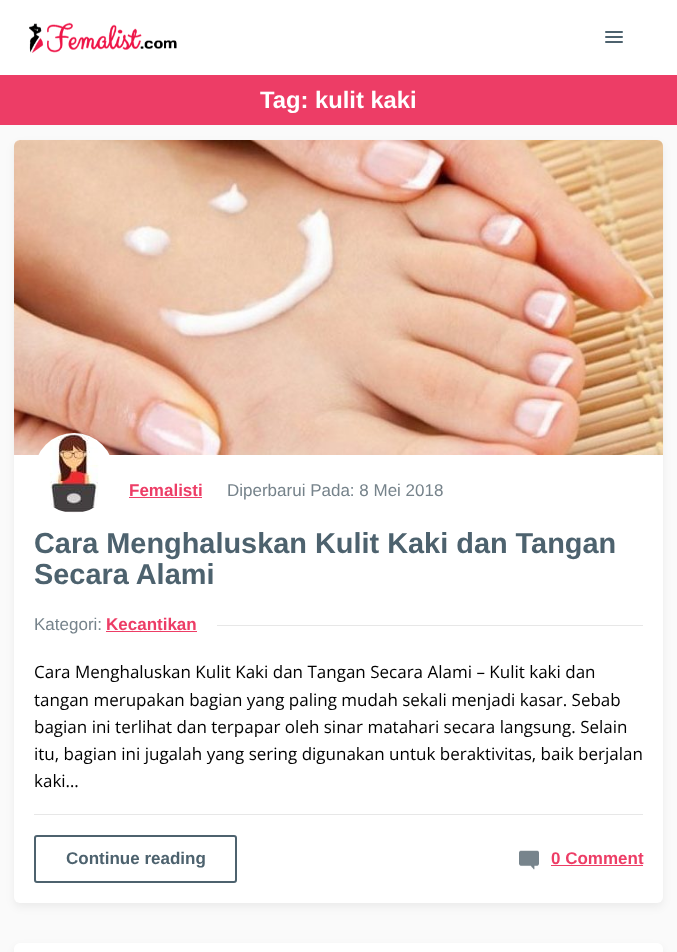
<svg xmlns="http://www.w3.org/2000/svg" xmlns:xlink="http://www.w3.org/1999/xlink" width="677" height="952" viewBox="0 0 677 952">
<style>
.cls-1{font:bold 23.75px Liberation Sans;fill:#ffffff}
.cls-2{font:bold 17px Liberation Sans;fill:#ed3d66}
.cls-3{font:17px Liberation Sans;fill:#76838b}
.cls-4{font:bold 28.9px Liberation Sans;fill:#4d626e}
.cls-5{font:17px Open Sans;fill:#000000}
.cls-6{font:bold 17px Liberation Sans;fill:#4d626e}
</style>
<rect width="100%" height="100%" fill="#fafafa"/>
<rect fill="#ffffff" x="0" y="0" width="677" height="75"/>
<image xlink:href="image0.png" x="29" y="22" width="148" height="31"/>
<rect fill="#4d626e" x="605" y="31" width="18" height="2" rx="1"/>
<rect fill="#4d626e" x="605" y="36" width="18" height="2" rx="1"/>
<rect fill="#4d626e" x="605" y="41" width="18" height="2" rx="1"/>
<rect fill="#ed3d66" x="0" y="75" width="677" height="50"/>
<rect fill="#000000" fill-opacity="0.06" filter="blur(4.5px)" x="14" y="144" width="649" height="763" rx="6"/>
<rect fill="#ffffff" x="14" y="140" width="649" height="763" rx="6"/>
<image xlink:href="image1.png" x="14" y="140" width="649" height="315"/>
<image xlink:href="image2.png" x="38" y="433" width="72" height="80"/>
<rect fill="#ed3d66" x="129" y="497" width="73" height="1"/>
<rect fill="#ed3d66" x="106" y="631" width="91" height="1"/>
<rect fill="#e7e7e7" x="217" y="625" width="426" height="1"/>
<rect fill="#e7e7e7" x="34" y="814" width="609" height="1"/>
<rect fill="none" stroke="#4d626e" stroke-width="2" x="35" y="836" width="201" height="46" rx="2"/>
<image xlink:href="image3.png" x="519" y="850" width="20" height="20"/>
<rect fill="#ed3d66" x="551" y="865" width="92" height="1"/>
<rect fill="#000000" fill-opacity="0.06" filter="blur(4.5px)" x="14" y="947" width="649" height="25" rx="6"/>
<rect fill="#ffffff" x="14" y="943" width="649" height="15" rx="6"/>
<text class="cls-1" x="260" y="108">Tag: kulit kaki</text>
<text class="cls-2" x="129" y="496">Femalisti</text>
<text class="cls-3" x="227" y="496">Diperbarui Pada: 8 Mei 2018</text>
<text class="cls-4"><tspan x="34" y="553">Cara Menghaluskan Kulit Kaki dan Tangan</tspan><tspan x="34" y="584">Secara Alami</tspan></text>
<text class="cls-3" x="34" y="630">Kategori:</text>
<text class="cls-2" x="106" y="630">Kecantikan</text>
<text class="cls-5"><tspan x="34" y="678">Cara Menghaluskan Kulit Kaki dan Tangan Secara Alami – Kulit kaki dan</tspan><tspan x="34" y="706">tangan merupakan bagian yang paling mudah sekali menjadi kasar. Sebab</tspan><tspan x="34" y="733">bagian ini terlihat dan terpapar oleh sinar matahari secara langsung. Selain</tspan><tspan x="34" y="760">itu, bagian ini jugalah yang sering digunakan untuk beraktivitas, baik berjalan</tspan><tspan x="34" y="787">kaki…</tspan></text>
<text class="cls-6" x="66" y="864">Continue reading</text>
<text class="cls-2" x="551" y="864">0 Comment</text>
</svg>
